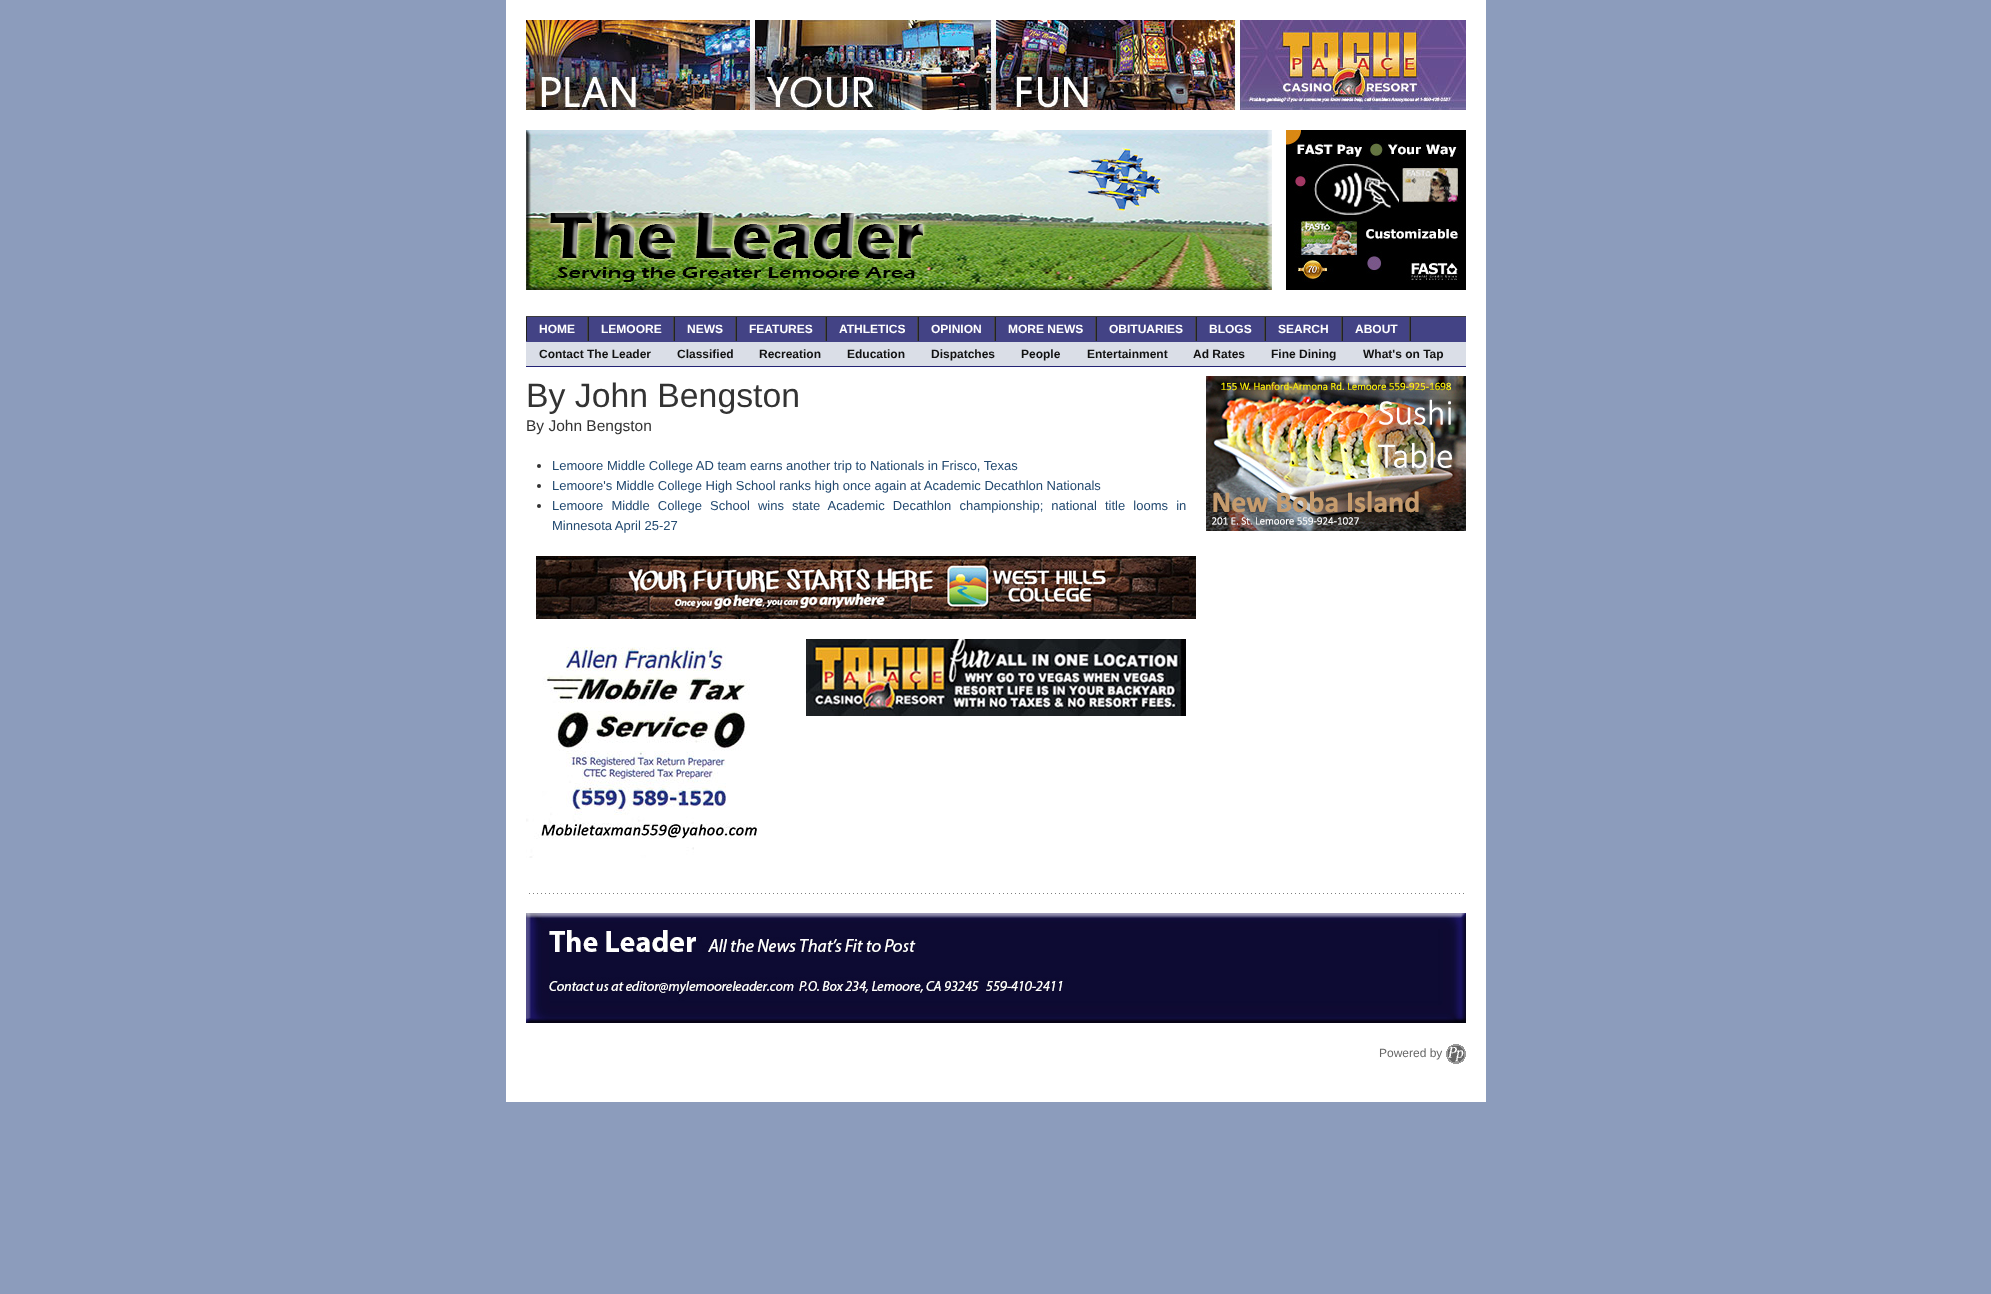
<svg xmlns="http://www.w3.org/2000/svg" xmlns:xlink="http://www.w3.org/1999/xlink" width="1991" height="1294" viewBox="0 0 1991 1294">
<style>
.cls-1{font:bold 12px Liberation Sans;fill:#ffffff}
.cls-2{font:bold 12px Liberation Sans;fill:#111111}
.cls-3{font:33.75px Liberation Sans;fill:#333333}
.cls-4{font:15.5px Liberation Sans;fill:#333333}
.cls-5{font:13px Liberation Sans;fill:#224970}
.cls-6{font:12px Liberation Sans;fill:#666666}
</style>
<rect width="100%" height="100%" fill="#8c9cbc"/>
<rect fill="#ffffff" x="506" y="0" width="980" height="1102"/>
<image xlink:href="image0.png" x="526" y="20" width="940" height="90"/>
<image xlink:href="image1.png" x="526" y="130" width="746" height="160"/>
<image xlink:href="image2.png" x="1286" y="130" width="180" height="160"/>
<rect fill="#3c3c3c" x="526" y="316" width="940" height="1"/>
<rect fill="#434385" x="526" y="317" width="940" height="25"/>
<rect fill="#444444" x="587" y="317" width="1" height="24"/>
<rect fill="#222222" x="526" y="317" width="1" height="24"/>
<rect fill="#444444" x="673" y="317" width="1" height="24"/>
<rect fill="#222222" x="588" y="317" width="1" height="24"/>
<rect fill="#444444" x="735" y="317" width="1" height="24"/>
<rect fill="#222222" x="674" y="317" width="1" height="24"/>
<rect fill="#444444" x="825" y="317" width="1" height="24"/>
<rect fill="#222222" x="736" y="317" width="1" height="24"/>
<rect fill="#444444" x="917" y="317" width="1" height="24"/>
<rect fill="#222222" x="826" y="317" width="1" height="24"/>
<rect fill="#444444" x="994" y="317" width="1" height="24"/>
<rect fill="#222222" x="918" y="317" width="1" height="24"/>
<rect fill="#444444" x="1095" y="317" width="1" height="24"/>
<rect fill="#222222" x="995" y="317" width="1" height="24"/>
<rect fill="#444444" x="1195" y="317" width="1" height="24"/>
<rect fill="#222222" x="1096" y="317" width="1" height="24"/>
<rect fill="#444444" x="1264" y="317" width="1" height="24"/>
<rect fill="#222222" x="1196" y="317" width="1" height="24"/>
<rect fill="#444444" x="1341" y="317" width="1" height="24"/>
<rect fill="#222222" x="1265" y="317" width="1" height="24"/>
<rect fill="#222222" x="1410" y="317" width="1" height="24"/>
<rect fill="#444444" x="1409" y="317" width="1" height="24"/>
<rect fill="#222222" x="1342" y="317" width="1" height="24"/>
<rect fill="#dadee7" x="526" y="342" width="940" height="24"/>
<rect fill="#232375" x="526" y="366" width="940" height="1"/>
<circle fill="#333333" cx="539" cy="466" r="2"/>
<circle fill="#333333" cx="539" cy="486" r="2"/>
<circle fill="#333333" cx="539" cy="506" r="2"/>
<image xlink:href="image3.png" x="536" y="556" width="660" height="63"/>
<image xlink:href="image4.png" x="526" y="647" width="231" height="211"/>
<image xlink:href="image5.png" x="806" y="639" width="380" height="77"/>
<image xlink:href="image6.png" x="1206" y="376" width="260" height="155"/>
<image xlink:href="image7.png" x="529" y="893" width="935" height="1"/>
<image xlink:href="image8.png" x="526" y="913" width="940" height="110"/>
<image xlink:href="image9.png" x="1446" y="1044" width="20" height="20"/>
<text class="cls-1" x="539" y="333">HOME</text>
<text class="cls-1" x="601" y="333">LEMOORE</text>
<text class="cls-1" x="687" y="333">NEWS</text>
<text class="cls-1" x="749" y="333">FEATURES</text>
<text class="cls-1" x="839" y="333">ATHLETICS</text>
<text class="cls-1" x="931" y="333">OPINION</text>
<text class="cls-1" x="1008" y="333">MORE NEWS</text>
<text class="cls-1" x="1109" y="333">OBITUARIES</text>
<text class="cls-1" x="1209" y="333">BLOGS</text>
<text class="cls-1" x="1278" y="333">SEARCH</text>
<text class="cls-1" x="1355" y="333">ABOUT</text>
<text class="cls-2" x="539" y="358">Contact The Leader</text>
<text class="cls-2" x="677" y="358">Classified</text>
<text class="cls-2" x="759" y="358">Recreation</text>
<text class="cls-2" x="847" y="358">Education</text>
<text class="cls-2" x="931" y="358">Dispatches</text>
<text class="cls-2" x="1021" y="358">People</text>
<text class="cls-2" x="1087" y="358">Entertainment</text>
<text class="cls-2" x="1193" y="358">Ad Rates</text>
<text class="cls-2" x="1271" y="358">Fine Dining</text>
<text class="cls-2" x="1363" y="358">What's on Tap</text>
<text class="cls-3" x="526" y="407">By John Bengston</text>
<text class="cls-4" x="526" y="431">By John Bengston</text>
<text class="cls-5"><tspan x="552" y="470">Lemoore Middle College AD team earns another trip to Nationals in Frisco, Texas</tspan><tspan x="552" y="490">Lemoore's Middle College High School ranks high once again at Academic Decathlon Nationals</tspan><tspan x="552" y="510" word-spacing="4.5">Lemoore Middle College School wins state Academic Decathlon championship; national title looms in</tspan><tspan x="552" y="530">Minnesota April 25-27</tspan></text>
<text class="cls-6" x="1379" y="1057">Powered by</text>
</svg>
